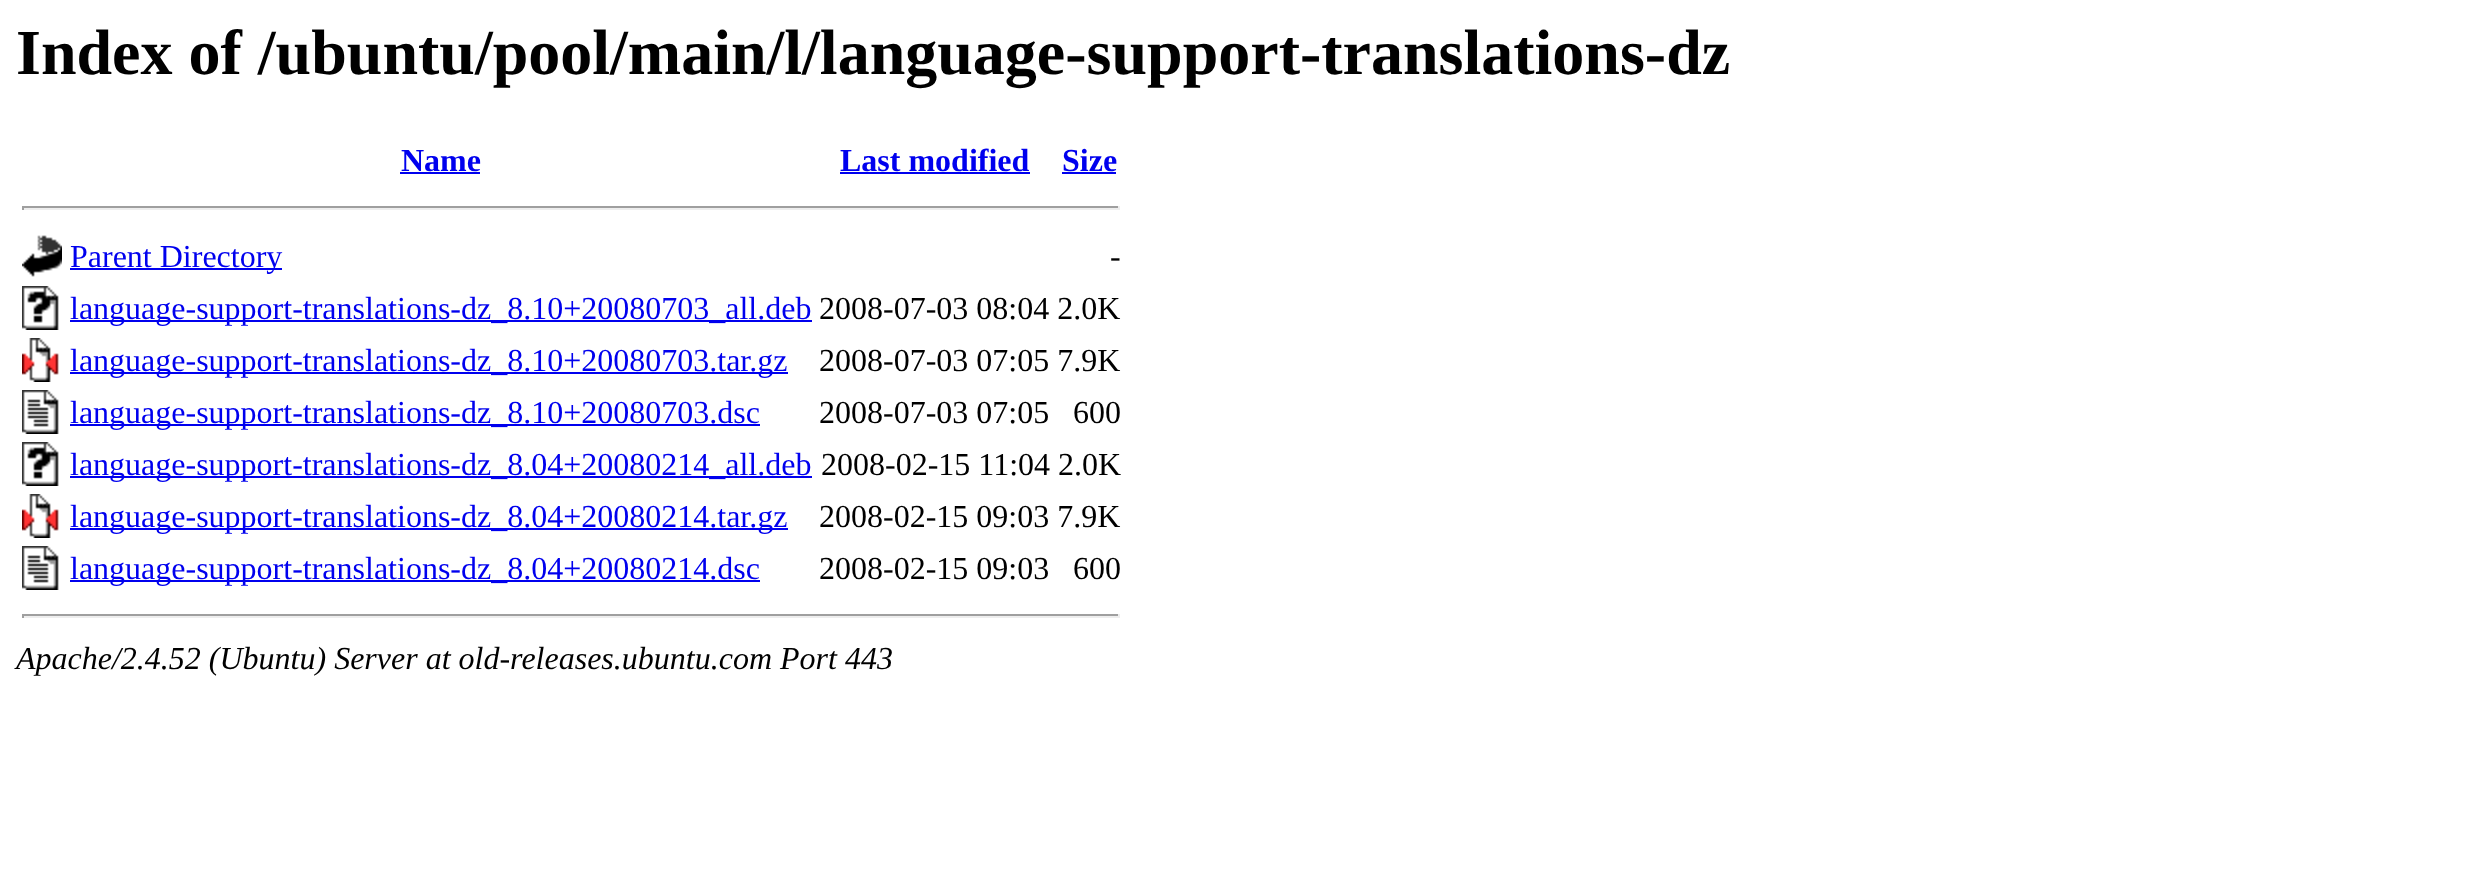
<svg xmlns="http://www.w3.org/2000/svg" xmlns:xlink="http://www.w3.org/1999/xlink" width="2492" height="879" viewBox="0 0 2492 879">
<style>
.cls-1{font:bold 64px Liberation Serif;fill:#000000}
.cls-2{font:bold 32px Liberation Serif;fill:#0000ee}
.cls-3{font:32px Liberation Serif;fill:#0000ee}
.cls-4{font:32px Liberation Serif;fill:#000000}
.cls-5{font:italic 32px Liberation Serif;fill:#000000}
</style>
<rect width="100%" height="100%" fill="#ffffff"/>
<rect fill="#0000ee" x="400" y="172" width="80" height="2"/>
<rect fill="#0000ee" x="840" y="172" width="190" height="2"/>
<rect fill="#0000ee" x="1062" y="172" width="54" height="2"/>
<rect fill="#9f9f9f" x="22" y="206" width="1098" height="2"/>
<rect fill="#eeeeee" x="1118" y="206" width="2" height="4"/>
<rect fill="#eeeeee" x="22" y="208" width="1098" height="2"/>
<rect fill="#9f9f9f" x="22" y="206" width="2" height="4"/>
<image xlink:href="image0.png" x="22" y="235" width="40" height="42"/>
<rect fill="#0000ee" x="70" y="268" width="212" height="2"/>
<image xlink:href="image1.png" x="22" y="286" width="37" height="44"/>
<rect fill="#0000ee" x="70" y="320" width="742" height="2"/>
<image xlink:href="image2.png" x="22" y="338" width="37" height="44"/>
<rect fill="#0000ee" x="70" y="372" width="718" height="2"/>
<image xlink:href="image3.png" x="22" y="390" width="37" height="44"/>
<rect fill="#0000ee" x="70" y="424" width="690" height="2"/>
<image xlink:href="image1.png" x="22" y="442" width="37" height="44"/>
<rect fill="#0000ee" x="70" y="476" width="742" height="2"/>
<image xlink:href="image2.png" x="22" y="494" width="37" height="44"/>
<rect fill="#0000ee" x="70" y="528" width="718" height="2"/>
<image xlink:href="image3.png" x="22" y="546" width="37" height="44"/>
<rect fill="#0000ee" x="70" y="580" width="690" height="2"/>
<rect fill="#9f9f9f" x="22" y="614" width="1098" height="2"/>
<rect fill="#eeeeee" x="1118" y="614" width="2" height="4"/>
<rect fill="#eeeeee" x="22" y="616" width="1098" height="2"/>
<rect fill="#9f9f9f" x="22" y="614" width="2" height="4"/>
<text class="cls-1" x="16" y="74">Index of /ubuntu/pool/main/l/language-support-translations-dz</text>
<text class="cls-2" x="401" y="171">Name</text>
<text class="cls-2" x="840" y="171">Last modified</text>
<text class="cls-2" x="1062" y="171">Size</text>
<text class="cls-3" x="70" y="267">Parent Directory</text>
<text class="cls-4" x="1110" y="267">-</text>
<text class="cls-3" x="70" y="319">language-support-translations-dz_8.10+20080703_all.deb</text>
<text class="cls-4" x="819" y="319">2008-07-03 08:04 2.0K</text>
<text class="cls-3" x="70" y="371">language-support-translations-dz_8.10+20080703.tar.gz</text>
<text class="cls-4" x="819" y="371">2008-07-03 07:05 7.9K</text>
<text class="cls-3" x="70" y="423">language-support-translations-dz_8.10+20080703.dsc</text>
<text class="cls-4" x="819" y="423">2008-07-03 07:05</text>
<text class="cls-4" x="1073" y="423">600</text>
<text class="cls-3" x="70" y="475">language-support-translations-dz_8.04+20080214_all.deb</text>
<text class="cls-4" x="821" y="475">2008-02-15 11:04 2.0K</text>
<text class="cls-3" x="70" y="527">language-support-translations-dz_8.04+20080214.tar.gz</text>
<text class="cls-4" x="819" y="527">2008-02-15 09:03 7.9K</text>
<text class="cls-3" x="70" y="579">language-support-translations-dz_8.04+20080214.dsc</text>
<text class="cls-4" x="819" y="579">2008-02-15 09:03</text>
<text class="cls-4" x="1073" y="579">600</text>
<text class="cls-5" x="16" y="669">Apache/2.4.52 (Ubuntu) Server at old-releases.ubuntu.com Port 443</text>
</svg>
